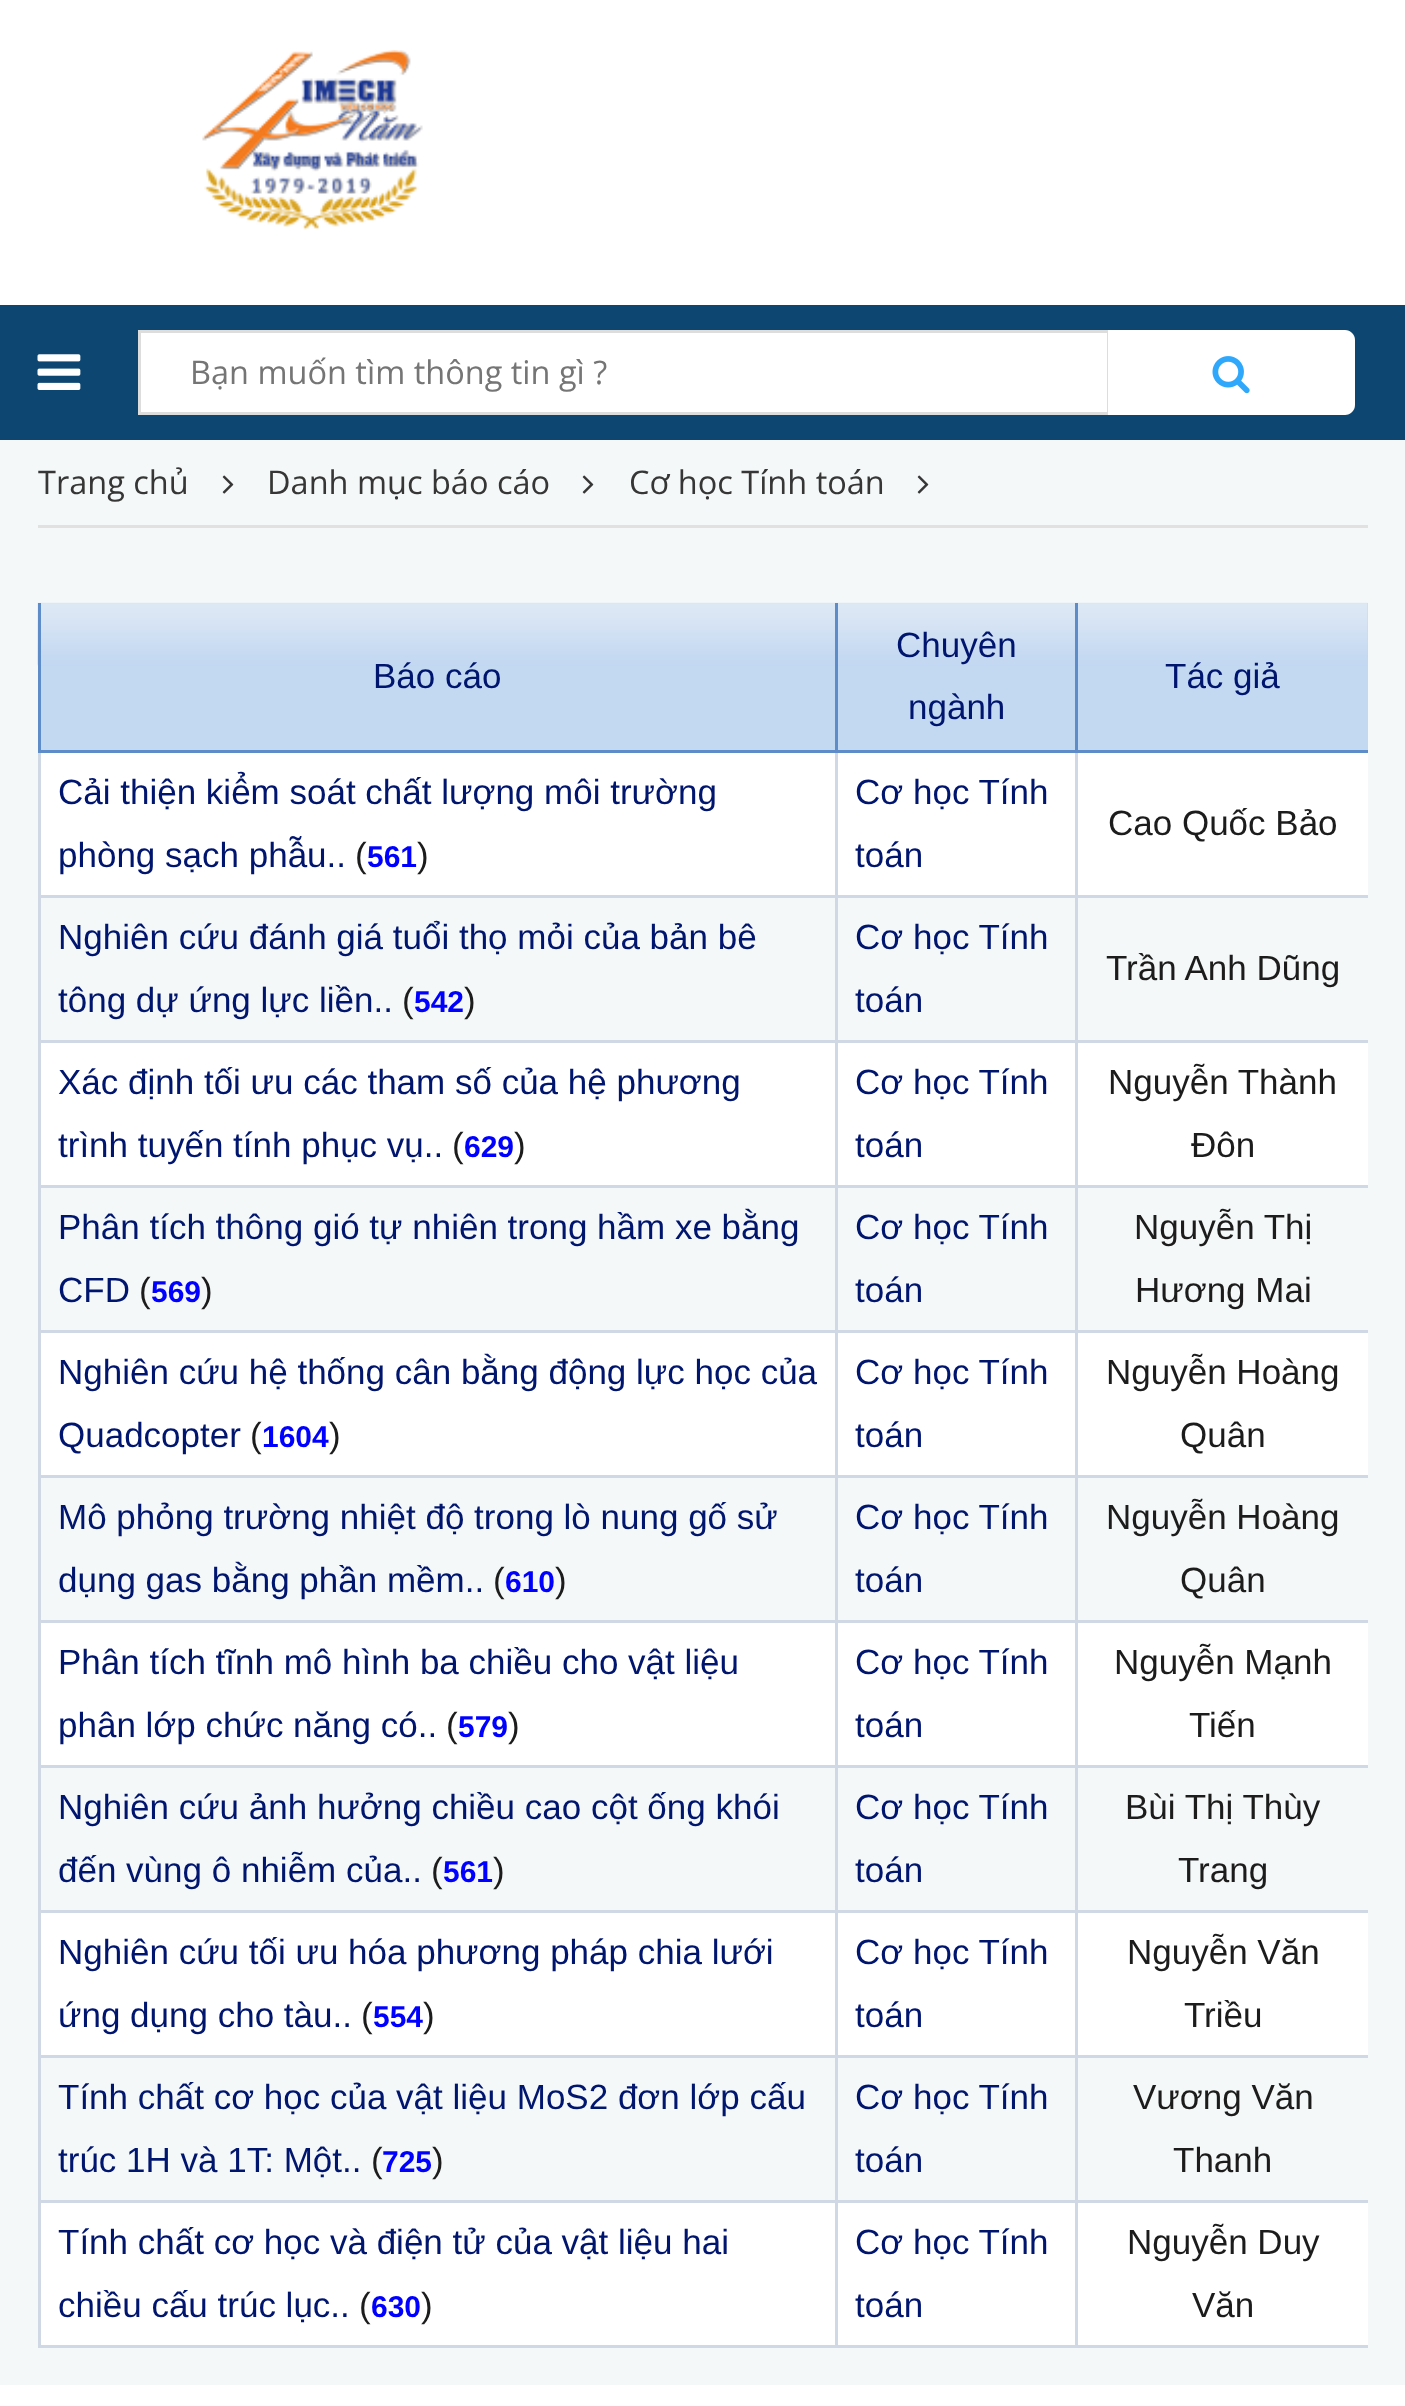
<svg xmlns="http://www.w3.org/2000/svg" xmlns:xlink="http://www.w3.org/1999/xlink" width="1405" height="2406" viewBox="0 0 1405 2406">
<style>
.cls-1{font:32.5px Open Sans;fill:#757575}
.cls-2{font:32.5px Open Sans;fill:#363636}
.cls-3{font:35px Liberation Sans;fill:#00156e}
.cls-4{font:35px Liberation Sans;fill:#1c1c1c}
.cls-5{font:bold 30px Liberation Sans;fill:#0000ff}
</style>
<rect width="100%" height="100%" fill="#f4f8f9"/>
<rect fill="#ffffff" x="0" y="0" width="1405" height="305"/>
<image xlink:href="image0.png" x="202" y="50" width="221" height="180"/>
<rect fill="#0d4671" x="0" y="305" width="1405" height="135"/>
<image xlink:href="image1.png" x="37" y="354" width="44" height="36"/>
<rect fill="#ffffff" stroke="#dddddd" stroke-width="3" x="139.5" y="331.5" width="969" height="82"/>
<path fill="#ffffff" d="M1108 330H1345C1350.5 330 1355 334.5 1355 340V405C1355 410.5 1350.5 415 1345 415H1108Z"/>
<image xlink:href="image2.png" x="1212" y="356" width="38" height="38"/>
<rect fill="#e1e1e1" x="38" y="525" width="1330" height="3"/>
<image xlink:href="image3.png" x="222" y="475" width="12" height="19"/>
<image xlink:href="image3.png" x="582" y="475" width="12" height="19"/>
<image xlink:href="image3.png" x="917" y="475" width="12" height="19"/>
<rect fill="#c3d8f1" x="41" y="603" width="794" height="147"/>
<image xlink:href="image4.png" x="37" y="602" width="798" height="64"/>
<rect fill="#5d8cc9" x="38" y="750" width="1330" height="3"/>
<rect fill="#5d8cc9" x="38" y="603" width="3" height="150"/>
<rect fill="#c3d8f1" x="838" y="603" width="237" height="147"/>
<image xlink:href="image5.png" x="835" y="602" width="240" height="64"/>
<rect fill="#5d8cc9" x="835" y="603" width="3" height="150"/>
<rect fill="#c3d8f1" x="1078" y="603" width="290" height="147"/>
<image xlink:href="image6.png" x="1075" y="602" width="293" height="64"/>
<rect fill="#5d8cc9" x="1075" y="603" width="3" height="150"/>
<rect fill="#ffffff" x="41" y="753" width="1327" height="142"/>
<rect fill="#d0d7e5" x="38" y="895" width="1330" height="3"/>
<rect fill="#d0d7e5" x="38" y="753" width="3" height="145"/>
<rect fill="#d0d7e5" x="835" y="753" width="3" height="145"/>
<rect fill="#d0d7e5" x="1075" y="753" width="3" height="145"/>
<rect fill="#d0d7e5" x="38" y="1040" width="1330" height="3"/>
<rect fill="#d0d7e5" x="38" y="898" width="3" height="145"/>
<rect fill="#d0d7e5" x="835" y="898" width="3" height="145"/>
<rect fill="#d0d7e5" x="1075" y="898" width="3" height="145"/>
<rect fill="#ffffff" x="41" y="1043" width="1327" height="142"/>
<rect fill="#d0d7e5" x="38" y="1185" width="1330" height="3"/>
<rect fill="#d0d7e5" x="38" y="1043" width="3" height="145"/>
<rect fill="#d0d7e5" x="835" y="1043" width="3" height="145"/>
<rect fill="#d0d7e5" x="1075" y="1043" width="3" height="145"/>
<rect fill="#d0d7e5" x="38" y="1330" width="1330" height="3"/>
<rect fill="#d0d7e5" x="38" y="1188" width="3" height="145"/>
<rect fill="#d0d7e5" x="835" y="1188" width="3" height="145"/>
<rect fill="#d0d7e5" x="1075" y="1188" width="3" height="145"/>
<rect fill="#ffffff" x="41" y="1333" width="1327" height="142"/>
<rect fill="#d0d7e5" x="38" y="1475" width="1330" height="3"/>
<rect fill="#d0d7e5" x="38" y="1333" width="3" height="145"/>
<rect fill="#d0d7e5" x="835" y="1333" width="3" height="145"/>
<rect fill="#d0d7e5" x="1075" y="1333" width="3" height="145"/>
<rect fill="#d0d7e5" x="38" y="1620" width="1330" height="3"/>
<rect fill="#d0d7e5" x="38" y="1478" width="3" height="145"/>
<rect fill="#d0d7e5" x="835" y="1478" width="3" height="145"/>
<rect fill="#d0d7e5" x="1075" y="1478" width="3" height="145"/>
<rect fill="#ffffff" x="41" y="1623" width="1327" height="142"/>
<rect fill="#d0d7e5" x="38" y="1765" width="1330" height="3"/>
<rect fill="#d0d7e5" x="38" y="1623" width="3" height="145"/>
<rect fill="#d0d7e5" x="835" y="1623" width="3" height="145"/>
<rect fill="#d0d7e5" x="1075" y="1623" width="3" height="145"/>
<rect fill="#d0d7e5" x="38" y="1910" width="1330" height="3"/>
<rect fill="#d0d7e5" x="38" y="1768" width="3" height="145"/>
<rect fill="#d0d7e5" x="835" y="1768" width="3" height="145"/>
<rect fill="#d0d7e5" x="1075" y="1768" width="3" height="145"/>
<rect fill="#ffffff" x="41" y="1913" width="1327" height="142"/>
<rect fill="#d0d7e5" x="38" y="2055" width="1330" height="3"/>
<rect fill="#d0d7e5" x="38" y="1913" width="3" height="145"/>
<rect fill="#d0d7e5" x="835" y="1913" width="3" height="145"/>
<rect fill="#d0d7e5" x="1075" y="1913" width="3" height="145"/>
<rect fill="#d0d7e5" x="38" y="2200" width="1330" height="3"/>
<rect fill="#d0d7e5" x="38" y="2058" width="3" height="145"/>
<rect fill="#d0d7e5" x="835" y="2058" width="3" height="145"/>
<rect fill="#d0d7e5" x="1075" y="2058" width="3" height="145"/>
<rect fill="#ffffff" x="41" y="2203" width="1327" height="142"/>
<rect fill="#d0d7e5" x="38" y="2345" width="1330" height="3"/>
<rect fill="#d0d7e5" x="38" y="2203" width="3" height="145"/>
<rect fill="#d0d7e5" x="835" y="2203" width="3" height="145"/>
<rect fill="#d0d7e5" x="1075" y="2203" width="3" height="145"/>
<rect fill="#ffffff" x="0" y="2385" width="1405" height="21"/>
<text class="cls-1" x="190" y="384">Bạn muốn tìm thông tin gì ?</text>
<text class="cls-2" x="38" y="494">Trang chủ</text>
<text class="cls-2" x="267" y="494">Danh mục báo cáo</text>
<text class="cls-2" x="629" y="494">Cơ học Tính toán</text>
<text class="cls-3" x="373" y="688">Báo cáo</text>
<text class="cls-3" x="896" y="657">Chuyên</text>
<text class="cls-3" x="908" y="719">ngành</text>
<text class="cls-3" x="1165" y="688">Tác giả</text>
<text class="cls-3"><tspan x="58" y="804">Cải thiện kiểm soát chất lượng môi trường</tspan><tspan x="58" y="867">phòng sạch phẫu..</tspan></text>
<text class="cls-4" x="355" y="867">(</text>
<text class="cls-5" x="367" y="867">561</text>
<text class="cls-4" x="417" y="867">)</text>
<text class="cls-3"><tspan x="855" y="804">Cơ học Tính</tspan><tspan x="855" y="867">toán</tspan></text>
<text class="cls-4" x="1108" y="835">Cao Quốc Bảo</text>
<text class="cls-3"><tspan x="58" y="949">Nghiên cứu đánh giá tuổi thọ mỏi của bản bê</tspan><tspan x="58" y="1012">tông dự ứng lực liền..</tspan></text>
<text class="cls-4" x="402" y="1012">(</text>
<text class="cls-5" x="414" y="1012">542</text>
<text class="cls-4" x="464" y="1012">)</text>
<text class="cls-3"><tspan x="855" y="949">Cơ học Tính</tspan><tspan x="855" y="1012">toán</tspan></text>
<text class="cls-4" x="1106" y="980">Trần Anh Dũng</text>
<text class="cls-3"><tspan x="58" y="1094">Xác định tối ưu các tham số của hệ phương</tspan><tspan x="58" y="1157">trình tuyến tính phục vụ..</tspan></text>
<text class="cls-4" x="452" y="1157">(</text>
<text class="cls-5" x="464" y="1157">629</text>
<text class="cls-4" x="514" y="1157">)</text>
<text class="cls-3"><tspan x="855" y="1094">Cơ học Tính</tspan><tspan x="855" y="1157">toán</tspan></text>
<text class="cls-4" x="1108" y="1094">Nguyễn Thành</text>
<text class="cls-4" x="1191" y="1157">Đôn</text>
<text class="cls-3"><tspan x="58" y="1239">Phân tích thông gió tự nhiên trong hầm xe bằng</tspan><tspan x="58" y="1302">CFD</tspan></text>
<text class="cls-4" x="139" y="1302">(</text>
<text class="cls-5" x="151" y="1302">569</text>
<text class="cls-4" x="201" y="1302">)</text>
<text class="cls-3"><tspan x="855" y="1239">Cơ học Tính</tspan><tspan x="855" y="1302">toán</tspan></text>
<text class="cls-4" x="1134" y="1239">Nguyễn Thị</text>
<text class="cls-4" x="1135" y="1302">Hương Mai</text>
<text class="cls-3"><tspan x="58" y="1384">Nghiên cứu hệ thống cân bằng động lực học của</tspan><tspan x="58" y="1447">Quadcopter</tspan></text>
<text class="cls-4" x="250" y="1447">(</text>
<text class="cls-5" x="262" y="1447">1604</text>
<text class="cls-4" x="329" y="1447">)</text>
<text class="cls-3"><tspan x="855" y="1384">Cơ học Tính</tspan><tspan x="855" y="1447">toán</tspan></text>
<text class="cls-4" x="1106" y="1384">Nguyễn Hoàng</text>
<text class="cls-4" x="1180" y="1447">Quân</text>
<text class="cls-3"><tspan x="58" y="1529">Mô phỏng trường nhiệt độ trong lò nung gố sử</tspan><tspan x="58" y="1592">dụng gas bằng phần mềm..</tspan></text>
<text class="cls-4" x="493" y="1592">(</text>
<text class="cls-5" x="505" y="1592">610</text>
<text class="cls-4" x="555" y="1592">)</text>
<text class="cls-3"><tspan x="855" y="1529">Cơ học Tính</tspan><tspan x="855" y="1592">toán</tspan></text>
<text class="cls-4" x="1106" y="1529">Nguyễn Hoàng</text>
<text class="cls-4" x="1180" y="1592">Quân</text>
<text class="cls-3"><tspan x="58" y="1674">Phân tích tĩnh mô hình ba chiều cho vật liệu</tspan><tspan x="58" y="1737">phân lớp chức năng có..</tspan></text>
<text class="cls-4" x="446" y="1737">(</text>
<text class="cls-5" x="458" y="1737">579</text>
<text class="cls-4" x="508" y="1737">)</text>
<text class="cls-3"><tspan x="855" y="1674">Cơ học Tính</tspan><tspan x="855" y="1737">toán</tspan></text>
<text class="cls-4" x="1114" y="1674">Nguyễn Mạnh</text>
<text class="cls-4" x="1189" y="1737">Tiến</text>
<text class="cls-3"><tspan x="58" y="1819">Nghiên cứu ảnh hưởng chiều cao cột ống khói</tspan><tspan x="58" y="1882">đến vùng ô nhiễm của..</tspan></text>
<text class="cls-4" x="431" y="1882">(</text>
<text class="cls-5" x="443" y="1882">561</text>
<text class="cls-4" x="493" y="1882">)</text>
<text class="cls-3"><tspan x="855" y="1819">Cơ học Tính</tspan><tspan x="855" y="1882">toán</tspan></text>
<text class="cls-4" x="1125" y="1819">Bùi Thị Thùy</text>
<text class="cls-4" x="1178" y="1882">Trang</text>
<text class="cls-3"><tspan x="58" y="1964">Nghiên cứu tối ưu hóa phương pháp chia lưới</tspan><tspan x="58" y="2027">ứng dụng cho tàu..</tspan></text>
<text class="cls-4" x="361" y="2027">(</text>
<text class="cls-5" x="373" y="2027">554</text>
<text class="cls-4" x="423" y="2027">)</text>
<text class="cls-3"><tspan x="855" y="1964">Cơ học Tính</tspan><tspan x="855" y="2027">toán</tspan></text>
<text class="cls-4" x="1127" y="1964">Nguyễn Văn</text>
<text class="cls-4" x="1184" y="2027">Triều</text>
<text class="cls-3"><tspan x="58" y="2109">Tính chất cơ học của vật liệu MoS2 đơn lớp cấu</tspan><tspan x="58" y="2172">trúc 1H và 1T: Một..</tspan></text>
<text class="cls-4" x="371" y="2172">(</text>
<text class="cls-5" x="382" y="2172">725</text>
<text class="cls-4" x="432" y="2172">)</text>
<text class="cls-3"><tspan x="855" y="2109">Cơ học Tính</tspan><tspan x="855" y="2172">toán</tspan></text>
<text class="cls-4" x="1133" y="2109">Vương Văn</text>
<text class="cls-4" x="1173" y="2172">Thanh</text>
<text class="cls-3"><tspan x="58" y="2254">Tính chất cơ học và điện tử của vật liệu hai</tspan><tspan x="58" y="2317">chiều cấu trúc lục..</tspan></text>
<text class="cls-4" x="359" y="2317">(</text>
<text class="cls-5" x="371" y="2317">630</text>
<text class="cls-4" x="421" y="2317">)</text>
<text class="cls-3"><tspan x="855" y="2254">Cơ học Tính</tspan><tspan x="855" y="2317">toán</tspan></text>
<text class="cls-4" x="1127" y="2254">Nguyễn Duy</text>
<text class="cls-4" x="1192" y="2317">Văn</text>
</svg>
